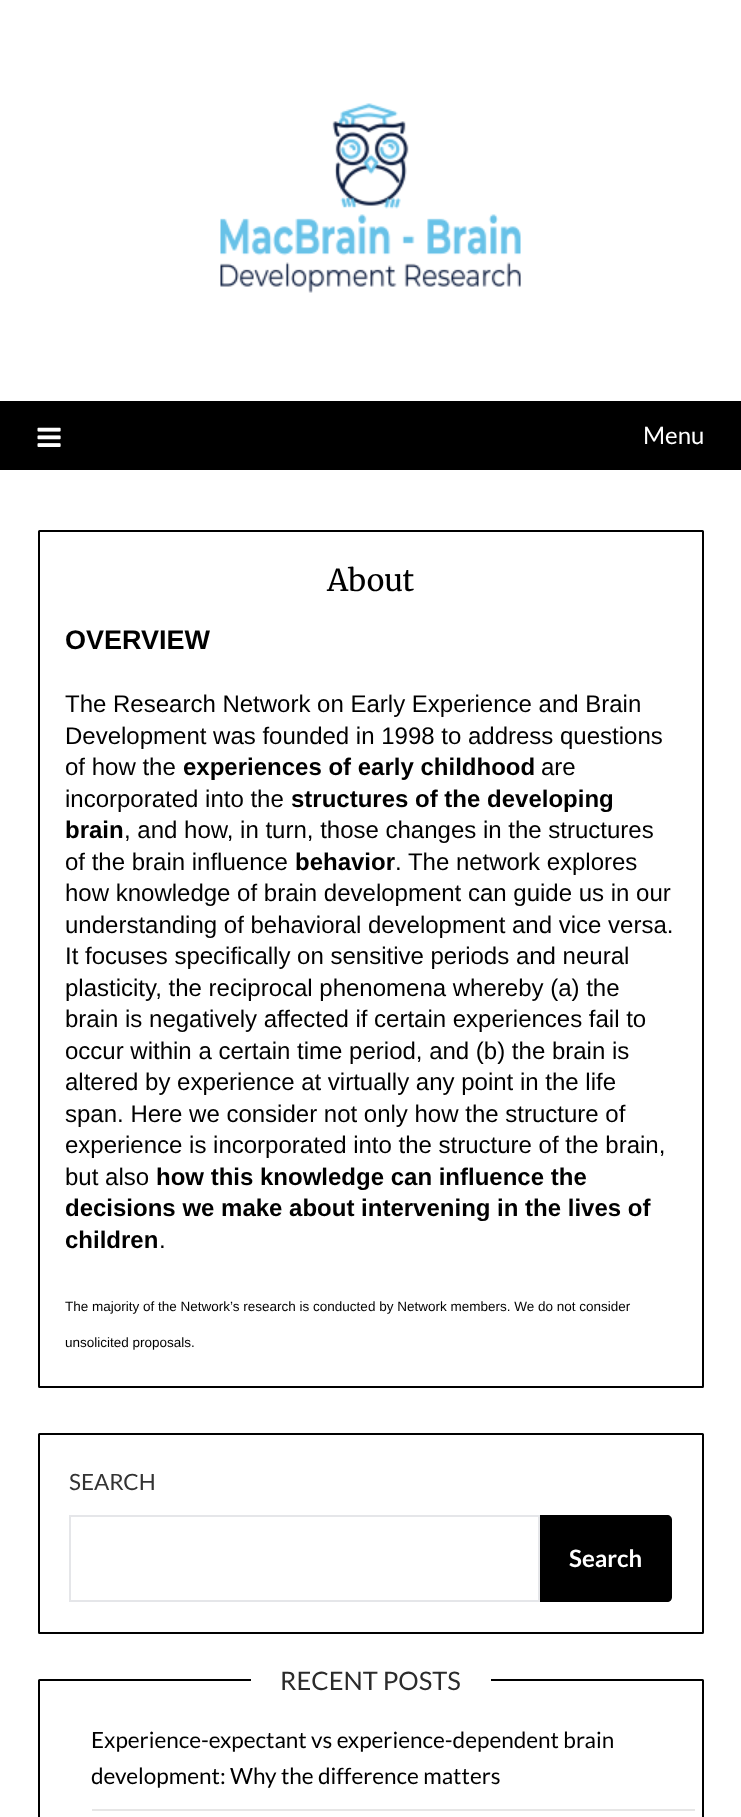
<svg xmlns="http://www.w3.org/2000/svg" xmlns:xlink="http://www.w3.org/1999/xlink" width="741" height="1817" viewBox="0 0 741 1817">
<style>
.cls-1{font:24px Lato;fill:#ffffff}
.cls-2{font:30px Merriweather;fill:#000000}
.cls-3{font:bold 27px Liberation Sans;fill:#000000}
.cls-4{font:24px Liberation Sans;fill:#000000}
.cls-5{font:bold 24px Liberation Sans;fill:#000000}
.cls-6{font:13.5px Liberation Sans;fill:#000000}
.cls-7{font:22.5px Lato;fill:#333333}
.cls-8{font:bold 24px Lato;fill:#ffffff}
.cls-9{font:25.5px Lato;fill:#2b2b2b}
.cls-10{font:22.5px Lato;fill:#000000}
</style>
<rect width="100%" height="100%" fill="#ffffff"/>
<image xlink:href="image0.png" x="220" y="103" width="301" height="190"/>
<rect fill="#000000" x="0" y="401" width="741" height="69"/>
<image xlink:href="image1.png" x="37" y="427" width="24" height="20"/>
<rect fill="none" stroke="#000000" stroke-width="2" x="39" y="531" width="664" height="856" rx="0.5"/>
<rect fill="none" stroke="#000000" stroke-width="2" x="39" y="1434" width="664" height="199" rx="0.5"/>
<rect fill="none" stroke="#e5e6e9" stroke-width="2" x="70" y="1516" width="469" height="85"/>
<path fill="#000000" d="M540 1515H667C670 1515 672 1517 672 1520V1597C672 1600 670 1602 667 1602H540Z"/>
<rect fill="none" stroke="#000000" stroke-width="2" x="39" y="1680" width="664" height="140" rx="0.5"/>
<rect fill="#ffffff" x="251" y="1679" width="240" height="2"/>
<rect fill="#e6e6e6" x="92" y="1809" width="603" height="2"/>
<text class="cls-1" x="643" y="444">Menu</text>
<text class="cls-2" x="327" y="591">About</text>
<text class="cls-3" x="65" y="649">OVERVIEW</text>
<text class="cls-4"><tspan x="65" y="712">The Research Network on Early Experience and Brain</tspan><tspan x="65" y="744">Development was founded in 1998 to address questions</tspan><tspan x="65" y="775">of how the</tspan></text>
<text class="cls-5" x="183" y="775">experiences of early childhood</text>
<text class="cls-4" x="541" y="775">are</text>
<text class="cls-4" x="65" y="807">incorporated into the</text>
<text class="cls-5" x="291" y="807">structures of the developing</text>
<text class="cls-5" x="65" y="838">brain</text>
<text class="cls-4" x="124" y="838">, and how, in turn, those changes in the structures</text>
<text class="cls-4" x="65" y="870">of the brain influence</text>
<text class="cls-5" x="295" y="870">behavior</text>
<text class="cls-4" x="395" y="870">. The network explores</text>
<text class="cls-4"><tspan x="65" y="901">how knowledge of brain development can guide us in our</tspan><tspan x="65" y="933">understanding of behavioral development and vice versa.</tspan><tspan x="65" y="964">It focuses specifically on sensitive periods and neural</tspan><tspan x="65" y="996">plasticity, the reciprocal phenomena whereby (a) the</tspan><tspan x="65" y="1027">brain is negatively affected if certain experiences fail to</tspan><tspan x="65" y="1059">occur within a certain time period, and (b) the brain is</tspan><tspan x="65" y="1090">altered by experience at virtually any point in the life</tspan><tspan x="65" y="1122">span. Here we consider not only how the structure of</tspan><tspan x="65" y="1153">experience is incorporated into the structure of the brain,</tspan><tspan x="65" y="1185">but also</tspan></text>
<text class="cls-5" x="156" y="1185">how this knowledge can influence the</text>
<text class="cls-5"><tspan x="65" y="1216">decisions we make about intervening in the lives of</tspan><tspan x="65" y="1248">children</tspan></text>
<text class="cls-4" x="159" y="1248">.</text>
<text class="cls-6" x="65" y="1311">The majority of the Network’s research is conducted by Network members. We do not consider</text>
<text class="cls-6" x="65" y="1347">unsolicited proposals.</text>
<text class="cls-7" x="69" y="1490">SEARCH</text>
<text class="cls-8" x="569" y="1567">Search</text>
<text class="cls-9" x="280" y="1690">RECENT POSTS</text>
<text class="cls-10"><tspan x="91" y="1748">Experience-expectant vs experience-dependent brain</tspan><tspan x="91" y="1784">development: Why the difference matters</tspan></text>
</svg>
